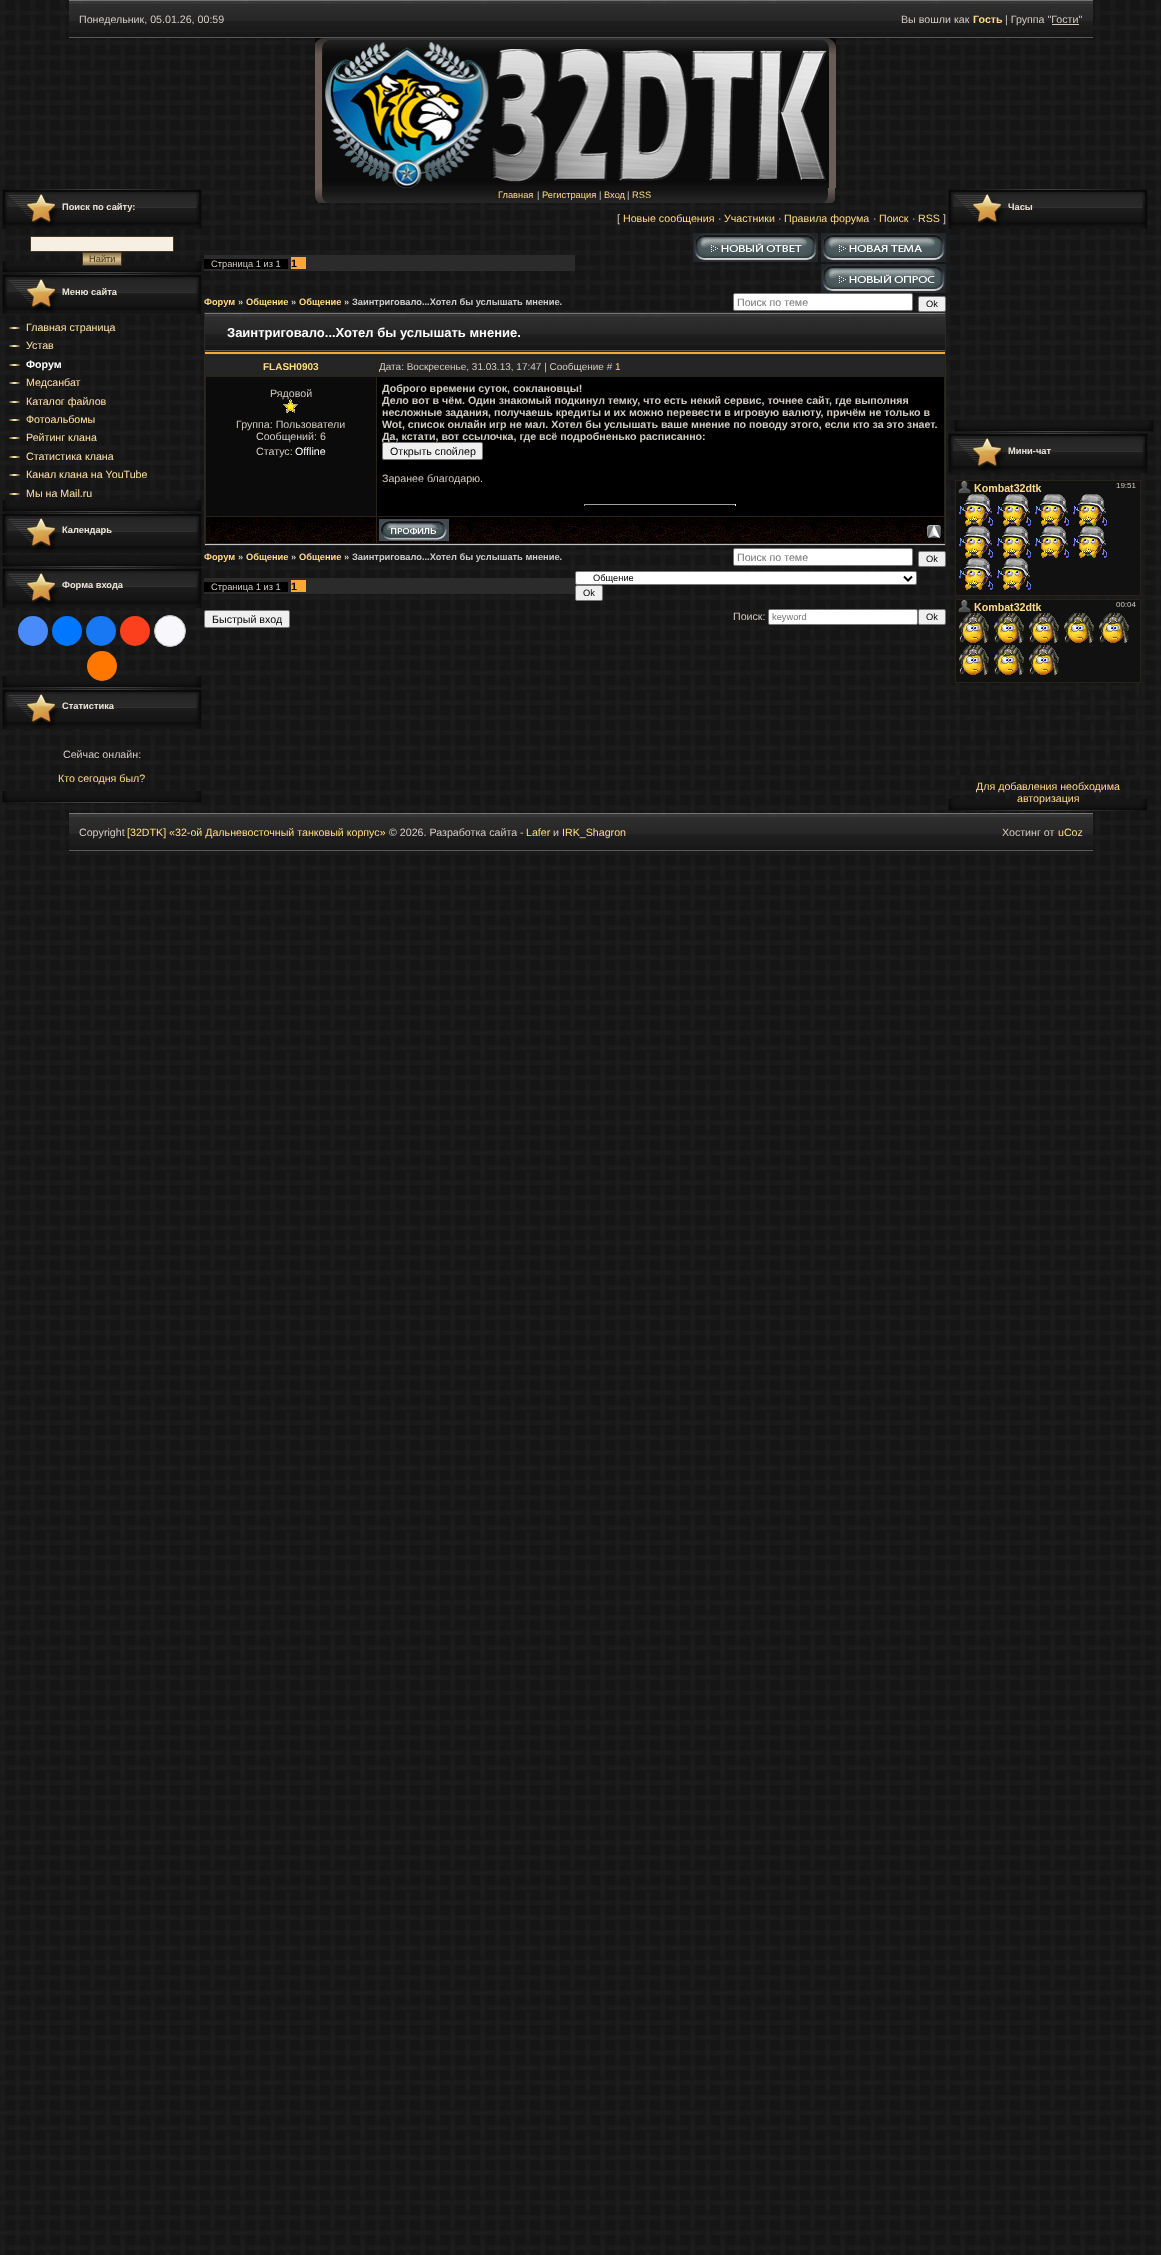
<svg xmlns="http://www.w3.org/2000/svg" xmlns:xlink="http://www.w3.org/1999/xlink" width="1161" height="2255" viewBox="0 0 1161 2255">
<style>
.cls-1{font:10.67px Liberation Sans;fill:#d2cbc0}
.cls-2{font:bold 10.67px Liberation Sans;fill:#ffdb83}
.cls-3{font:bold 9.3px Liberation Sans;fill:#e9e1d5}
.cls-4{font:9.3px Liberation Sans;fill:#44361e}
.cls-5{font:10.67px Liberation Sans;fill:#ffe0a2}
.cls-6{font:bold 10.67px Liberation Sans;fill:#ffffff}
.cls-7{font:10.67px Liberation Sans;fill:#ffdb83}
.cls-8{font:9.3px Liberation Sans;fill:#ffdb83}
.cls-9{font:9.3px Liberation Sans;fill:#d2cbc0}
.cls-10{font:bold 10.67px Liberation Sans;fill:#000000}
.cls-11{font:bold 9.3px Liberation Sans;fill:#ffdb83}
.cls-12{font:bold 9.3px Liberation Sans;fill:#d2cbc0}
.cls-13{font:bold 9.3px Liberation Sans;fill:#cccccc}
.cls-14{font:10.67px Liberation Sans;fill:#757575}
.cls-15{font:9.3px Liberation Sans;fill:#000000}
.cls-16{font:bold 13px Liberation Sans;fill:#ffffff}
.cls-17{font:bold 10px Liberation Sans;fill:#ffdb83}
.cls-18{font:10px Liberation Sans;fill:#d2cbc0}
.cls-19{font:10px Liberation Sans;fill:#ffdb83}
.cls-20{font:10.67px Liberation Sans;fill:#ffffff}
.cls-21{font:bold 10.67px Liberation Sans;fill:#d2cbc0}
.cls-22{font:10.67px Liberation Sans;fill:#000000}
.cls-23{font:9.3px Liberation Sans;fill:#757575}
</style>
<rect width="100%" height="100%" fill="#ffffff"/>
<image xlink:href="image0.png" x="0" y="0" width="1161" height="2255"/>
<image xlink:href="image1.png" x="69" y="0" width="1024" height="38"/>
<rect fill="#d2cbc0" x="1052" y="24" width="27" height="1"/>
<image xlink:href="image2.png" x="315" y="38" width="521" height="150"/>
<image xlink:href="image3.png" x="2" y="189" width="200" height="40"/>
<image xlink:href="image4.png" x="2" y="261" width="200" height="12"/>
<rect fill="#f8efe3" stroke="#44361e" x="30.5" y="236.5" width="143" height="15"/>
<image xlink:href="image5.png" x="83" y="253" width="38" height="12"/>
<rect fill="none" stroke="#44361e" x="82.5" y="252.5" width="39" height="13"/>
<image xlink:href="image3.png" x="2" y="274" width="200" height="40"/>
<image xlink:href="image4.png" x="2" y="500" width="200" height="12"/>
<image xlink:href="image6.png" x="9" y="327" width="11" height="2"/>
<image xlink:href="image6.png" x="9" y="345" width="11" height="2"/>
<image xlink:href="image6.png" x="9" y="364" width="11" height="2"/>
<image xlink:href="image6.png" x="9" y="382" width="11" height="2"/>
<image xlink:href="image6.png" x="9" y="401" width="11" height="2"/>
<image xlink:href="image6.png" x="9" y="419" width="11" height="2"/>
<image xlink:href="image6.png" x="9" y="437" width="11" height="2"/>
<image xlink:href="image6.png" x="9" y="456" width="11" height="2"/>
<image xlink:href="image6.png" x="9" y="474" width="11" height="2"/>
<image xlink:href="image6.png" x="9" y="493" width="11" height="2"/>
<image xlink:href="image3.png" x="2" y="513" width="200" height="40"/>
<image xlink:href="image4.png" x="2" y="555" width="200" height="12"/>
<image xlink:href="image3.png" x="2" y="568" width="200" height="40"/>
<image xlink:href="image4.png" x="2" y="676" width="200" height="12"/>
<circle fill="#498bfa" cx="33" cy="631" r="15"/>
<circle fill="#0077ff" cx="67" cy="631" r="15"/>
<circle fill="#1877f2" cx="101" cy="631" r="15"/>
<circle fill="#fc3f1d" cx="135" cy="631" r="15"/>
<circle fill="#f8f8fc" stroke="#c4c4c4" cx="170" cy="631" r="15.5"/>
<circle fill="#ff7700" cx="102" cy="666" r="15"/>
<image xlink:href="image3.png" x="2" y="689" width="200" height="40"/>
<image xlink:href="image4.png" x="2" y="791" width="200" height="12"/>
<image xlink:href="image7.png" x="315" y="188" width="520" height="15"/>
<rect fill="#2b2b2b" x="204" y="255" width="371" height="16"/>
<rect fill="#000000" x="204" y="259" width="84" height="10"/>
<rect fill="#fca735" x="291" y="257" width="15" height="12"/>
<image xlink:href="image8.png" x="693" y="233" width="125" height="29"/>
<image xlink:href="image9.png" x="821" y="233" width="125" height="29"/>
<image xlink:href="image10.png" x="821" y="264" width="125" height="29"/>
<rect fill="#ffffff" stroke="#767676" x="733.5" y="293.5" width="179" height="17" rx="1.5"/>
<rect fill="#efefef" stroke="#767676" x="918.5" y="296.5" width="27" height="15" rx="1.5"/>
<rect fill="#2a2a2a" x="204" y="312" width="742" height="234"/>
<image xlink:href="image11.png" x="205" y="313" width="740" height="38"/>
<rect fill="#fca735" x="205" y="352" width="740" height="2"/>
<rect fill="#c0c0c0" x="205" y="544" width="740" height="1"/>
<rect fill="#282318" x="205" y="355" width="740" height="189"/>
<rect fill="#252525" x="206" y="356" width="170" height="20"/>
<rect fill="#252525" x="377" y="356" width="567" height="20"/>
<rect fill="#0b0b0b" x="206" y="377" width="170" height="139"/>
<rect fill="#000000" x="377" y="377" width="567" height="139"/>
<rect fill="#9f9f9f" x="584" y="504" width="152" height="1"/>
<rect fill="#eeeeee" x="735" y="504" width="1" height="2"/>
<rect fill="#9f9f9f" x="584" y="504" width="1" height="2"/>
<image xlink:href="image13.png" x="206" y="517" width="170" height="26"/>
<image xlink:href="image14.png" x="377" y="517" width="567" height="26"/>
<image xlink:href="image15.png" x="379" y="519" width="70" height="22"/>
<image xlink:href="image16.png" x="926" y="524" width="16" height="15"/>
<rect fill="#ffffff" stroke="#767676" x="733.5" y="548.5" width="179" height="17" rx="1.5"/>
<rect fill="#efefef" stroke="#767676" x="918.5" y="551.5" width="27" height="15" rx="1.5"/>
<rect fill="#2b2b2b" x="204" y="578" width="371" height="16"/>
<rect fill="#000000" x="204" y="582" width="84" height="10"/>
<rect fill="#fca735" x="291" y="580" width="15" height="12"/>
<rect fill="#ffffff" stroke="#767676" x="575.5" y="571.5" width="341" height="13" rx="1.5"/>
<path fill="none" stroke="#000000" stroke-width="2" d="M904 576.5L908 580.5L912 576.5"/>
<rect fill="#efefef" stroke="#767676" x="575.5" y="585.5" width="27" height="15" rx="1.5"/>
<rect fill="#efefef" stroke="#767676" x="204.5" y="610.5" width="85" height="17" rx="1.5"/>
<rect fill="#ffffff" stroke="#767676" x="768.5" y="609.5" width="149" height="15" rx="1.5"/>
<rect fill="#efefef" stroke="#767676" x="918.5" y="609.5" width="27" height="15" rx="1.5"/>
<image xlink:href="image3.png" x="948" y="189" width="200" height="40"/>
<image xlink:href="image4.png" x="954" y="420" width="200" height="12"/>
<image xlink:href="image3.png" x="948" y="433" width="200" height="40"/>
<image xlink:href="image4.png" x="948" y="799" width="200" height="12"/>
<image xlink:href="image17.png" x="955" y="480" width="186" height="295"/>
<image xlink:href="image1.png" x="69" y="813" width="1024" height="38"/>
<text class="cls-1" x="79" y="23">Понедельник, 05.01.26, 00:59</text>
<text class="cls-1" x="901" y="23">Вы вошли как</text>
<text class="cls-2" x="973" y="23">Гость</text>
<text class="cls-1" x="1005" y="23">| Группа "Гости"</text>
<text class="cls-3" x="62" y="210">Поиск по сайту:</text>
<text class="cls-4" x="89" y="262">Найти</text>
<text class="cls-3" x="62" y="295">Меню сайта</text>
<text class="cls-5"><tspan x="26" y="331">Главная страница</tspan><tspan x="26" y="349">Устав</tspan></text>
<text class="cls-6" x="26" y="368">Форум</text>
<text class="cls-5"><tspan x="26" y="386">Медсанбат</tspan><tspan x="26" y="405">Каталог файлов</tspan><tspan x="26" y="423">Фотоальбомы</tspan><tspan x="26" y="441">Рейтинг клана</tspan><tspan x="26" y="460">Статистика клана</tspan><tspan x="26" y="478">Канал клана на YouTube</tspan><tspan x="26" y="497">Мы на Мail.ru</tspan></text>
<text class="cls-3" x="62" y="533">Календарь</text>
<text class="cls-3" x="62" y="588">Форма входа</text>
<text class="cls-3" x="62" y="709">Статистика</text>
<text class="cls-1" x="63" y="758">Сейчас онлайн:</text>
<text class="cls-7" x="58" y="782">Кто сегодня был?</text>
<text class="cls-8" x="498" y="198">Главная</text>
<text class="cls-9" x="537" y="198">|</text>
<text class="cls-8" x="542" y="198">Регистрация</text>
<text class="cls-9" x="599" y="198">|</text>
<text class="cls-8" x="604" y="198">Вход</text>
<text class="cls-9" x="627" y="198">|</text>
<text class="cls-8" x="632" y="198">RSS</text>
<text class="cls-1" x="617" y="222">[</text>
<text class="cls-7" x="623" y="222">Новые сообщения</text>
<text class="cls-1" x="718" y="222">·</text>
<text class="cls-7" x="724" y="222">Участники</text>
<text class="cls-1" x="778" y="222">·</text>
<text class="cls-7" x="784" y="222">Правила форума</text>
<text class="cls-1" x="873" y="222">·</text>
<text class="cls-7" x="879" y="222">Поиск</text>
<text class="cls-1" x="912" y="222">·</text>
<text class="cls-7" x="918" y="222">RSS</text>
<text class="cls-1" x="943" y="222">]</text>
<text class="cls-9" x="211" y="267">Страница 1 из 1</text>
<text class="cls-10" x="291" y="267">1</text>
<text class="cls-11" x="204" y="305">Форум</text>
<text class="cls-12" x="238" y="305">»</text>
<text class="cls-11" x="246" y="305">Общение</text>
<text class="cls-12" x="291" y="305">»</text>
<text class="cls-11" x="299" y="305">Общение</text>
<text class="cls-12" x="344" y="305">»</text>
<text class="cls-13" x="352" y="305">Заинтриговало...Хотел бы услышать мнение.</text>
<text class="cls-14" x="737" y="306">Поиск по теме</text>
<text class="cls-15" x="926" y="307">Ok</text>
<text class="cls-16" x="227" y="337">Заинтриговало...Хотел бы услышать мнение.</text>
<text class="cls-17" x="263" y="370">FLASH0903</text>
<text class="cls-18" x="379" y="370">Дата: Воскресенье, 31.03.13, 17:47 | Сообщение #</text>
<text class="cls-19" x="615" y="370">1</text>
<text class="cls-1" x="270" y="397">Рядовой</text>
<image xlink:href="image12.png" x="283" y="399" width="15" height="14"/>
<text class="cls-1" x="236" y="428">Группа: Пользователи</text>
<text class="cls-1"><tspan x="256" y="440">Сообщений: 6</tspan><tspan x="256" y="455">Статус:</tspan></text>
<text class="cls-20" x="295" y="455">Offline</text>
<text class="cls-21"><tspan x="382" y="392">Доброго времени суток, соклановцы!</tspan><tspan x="382" y="404">Дело вот в чём. Один знакомый подкинул темку, что есть некий сервис, точнее сайт, где выполняя</tspan><tspan x="382" y="416">несложные задания, получаешь кредиты и их можно перевести в игровую валюту, причём не только в</tspan><tspan x="382" y="428">Wot, список онлайн игр не мал. Хотел бы услышать ваше мнение по поводу этого, если кто за это знает.</tspan><tspan x="382" y="440">Да, кстати, вот ссылочка, где всё подробненько расписанно:</tspan></text>
<rect fill="#efefef" stroke="#767676" x="382.5" y="442.5" width="100" height="17" rx="1.5"/>
<text class="cls-22" x="390" y="455">Открыть спойлер</text>
<text class="cls-1" x="382" y="482">Заранее благодарю.</text>
<text class="cls-11" x="204" y="560">Форум</text>
<text class="cls-12" x="238" y="560">»</text>
<text class="cls-11" x="246" y="560">Общение</text>
<text class="cls-12" x="291" y="560">»</text>
<text class="cls-11" x="299" y="560">Общение</text>
<text class="cls-12" x="344" y="560">»</text>
<text class="cls-13" x="352" y="560">Заинтриговало...Хотел бы услышать мнение.</text>
<text class="cls-14" x="737" y="561">Поиск по теме</text>
<text class="cls-15" x="926" y="562">Ok</text>
<text class="cls-9" x="211" y="590">Страница 1 из 1</text>
<text class="cls-10" x="291" y="590">1</text>
<text class="cls-15" x="593" y="581">Общение</text>
<text class="cls-15" x="583" y="596">Ok</text>
<text class="cls-22" x="212" y="623">Быстрый вход</text>
<text class="cls-1" x="733" y="620">Поиск:</text>
<text class="cls-23" x="772" y="620">keyword</text>
<text class="cls-15" x="926" y="620">Ok</text>
<text class="cls-3" x="1008" y="210">Часы</text>
<text class="cls-3" x="1008" y="454">Мини-чат</text>
<text class="cls-7" x="976" y="790">Для добавления необходима</text>
<text class="cls-7" x="1017" y="802">авторизация</text>
<text class="cls-1" x="79" y="836">Copyright</text>
<text class="cls-7" x="127" y="836">[32DTK] «32-ой Дальневосточный танковый корпус»</text>
<text class="cls-1" x="389" y="836">© 2026. Разработка сайта -</text>
<text class="cls-7" x="526" y="836">Lafer</text>
<text class="cls-1" x="553" y="836">и</text>
<text class="cls-7" x="562" y="836">IRK_Shagron</text>
<text class="cls-1" x="1002" y="836">Хостинг от</text>
<text class="cls-7" x="1058" y="836">uCoz</text>
</svg>
